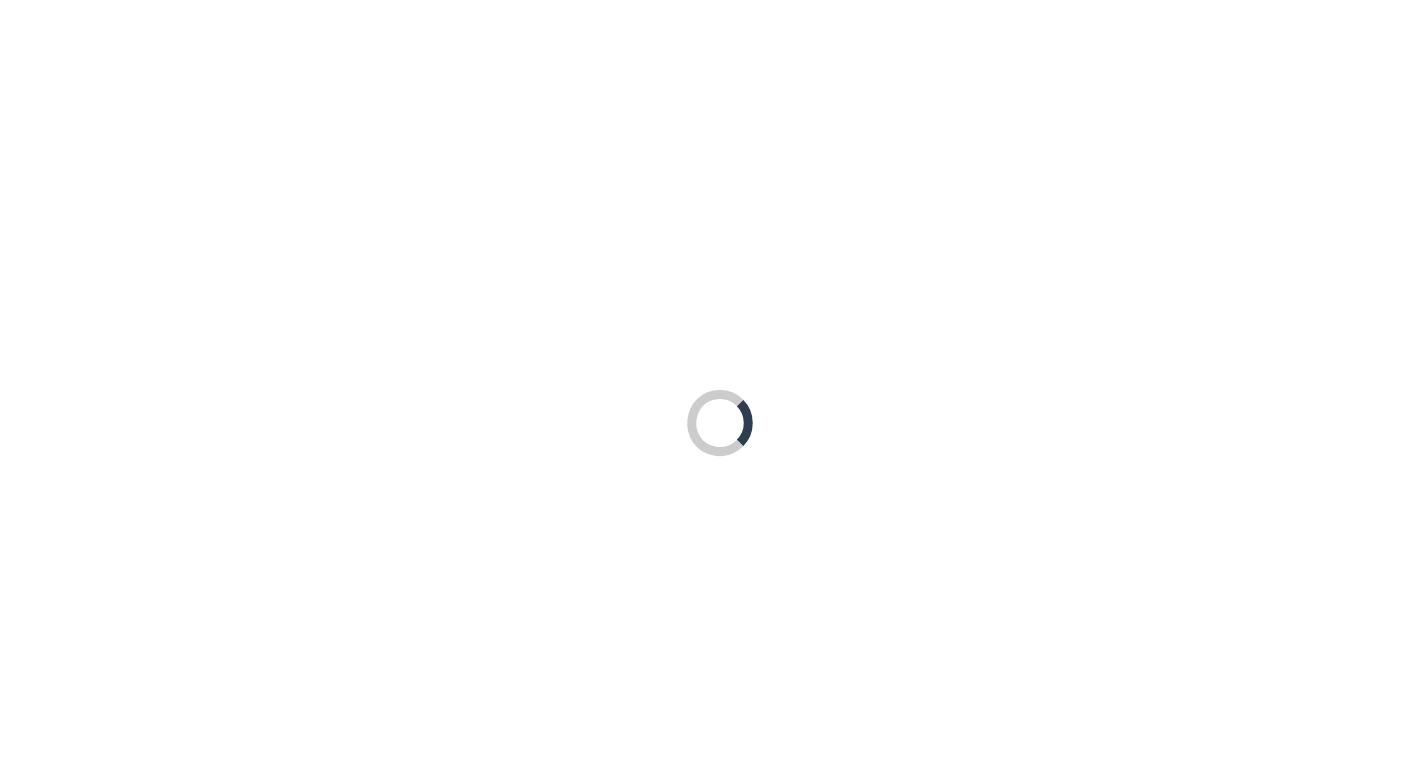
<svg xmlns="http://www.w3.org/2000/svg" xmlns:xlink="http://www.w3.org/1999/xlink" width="1414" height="779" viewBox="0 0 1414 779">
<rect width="100%" height="100%" fill="#ffffff"/>
<path fill="none" stroke="#2c3e50" stroke-width="9" d="M740 403C751 414 751 432 740 443"/>
<path fill="none" stroke="#cccccc" stroke-width="9" d="M740 443C733.5 450 723.5 453 714.5 451C681 444.5 686 394.5 720 394.5C727.5 394.5 735 397.5 740 403"/>
</svg>
